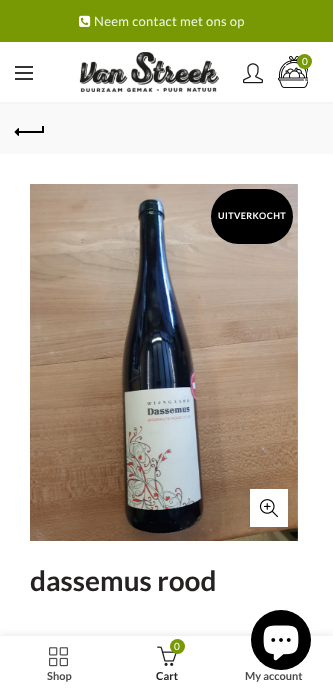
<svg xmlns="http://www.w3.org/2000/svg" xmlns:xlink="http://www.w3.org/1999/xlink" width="333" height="691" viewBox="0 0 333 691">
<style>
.cls-1{font:13px Lato;letter-spacing:0.3px;fill:#f2f5e6}
.cls-2{font:10px Lato;fill:#ffffff}
.cls-3{font:bold 9px Lato;letter-spacing:0.4px;fill:#ffffff}
.cls-4{font:bold 28px Lato;fill:#252222}
.cls-5{font:bold 11px Lato;fill:#4c4c4c}
.cls-6{font:bold 11px Lato;fill:#252222}
</style>
<rect width="100%" height="100%" fill="#ffffff"/>
<rect fill="#789904" x="0" y="0" width="333" height="42"/>
<image xlink:href="image0.png" x="79" y="15" width="12" height="12"/>
<rect fill="#f5f5f5" x="0" y="102" width="333" height="2"/>
<image xlink:href="image1.png" x="79" y="52" width="140" height="40"/>
<image xlink:href="image2.png" x="278" y="56" width="30" height="32"/>
<circle fill="#789904" cx="304.5" cy="61.5" r="7.5"/>
<image xlink:href="image3.png" x="243" y="63" width="20" height="21"/>
<rect fill="#333333" x="15" y="72" width="18" height="2"/>
<rect fill="#333333" x="15" y="66" width="18" height="2"/>
<rect fill="#333333" x="15" y="78" width="18" height="2"/>
<rect fill="#f9f9f9" x="0" y="104" width="333" height="50"/>
<rect fill="#000000" x="18" y="131" width="25" height="2"/>
<image xlink:href="image4.png" x="14" y="128" width="5" height="8"/>
<rect fill="#000000" x="42" y="126" width="2" height="7"/>
<image xlink:href="image5.png" x="30" y="184" width="268" height="357"/>
<rect fill="#000000" fill-opacity="0.1" filter="blur(4.5px)" x="250" y="489" width="38" height="38"/>
<rect fill="#ffffff" x="250" y="489" width="38" height="38"/>
<image xlink:href="image6.png" x="259" y="499" width="19" height="19"/>
<rect fill="#000000" x="211" y="189" width="82" height="55" rx="27.5"/>
<rect fill="#000000" fill-opacity="0.12" filter="blur(4.5px)" x="0" y="636" width="333" height="55"/>
<rect fill="#ffffff" x="0" y="636" width="333" height="55"/>
<image xlink:href="image10.png" x="265" y="665" width="3" height="2"/>
<circle fill="#000000" cx="281" cy="640" r="30"/>
<image xlink:href="image7.png" x="263" y="625" width="36" height="36"/>
<image xlink:href="image8.png" x="49" y="647" width="19" height="20"/>
<image xlink:href="image9.png" x="157" y="646" width="20" height="20"/>
<circle fill="#789904" cx="177.5" cy="646.5" r="7.5"/>
<text class="cls-1" x="94" y="26">Neem contact met ons op</text>
<text class="cls-2" x="302" y="65">0</text>
<text class="cls-3" x="218" y="219">UITVERKOCHT</text>
<text class="cls-4" x="30" y="591">dassemus rood</text>
<text class="cls-5" x="47" y="680">Shop</text>
<text class="cls-2" x="174" y="650">0</text>
<text class="cls-6" x="156" y="680">Cart</text>
<text class="cls-5" x="245" y="680">My account</text>
</svg>
